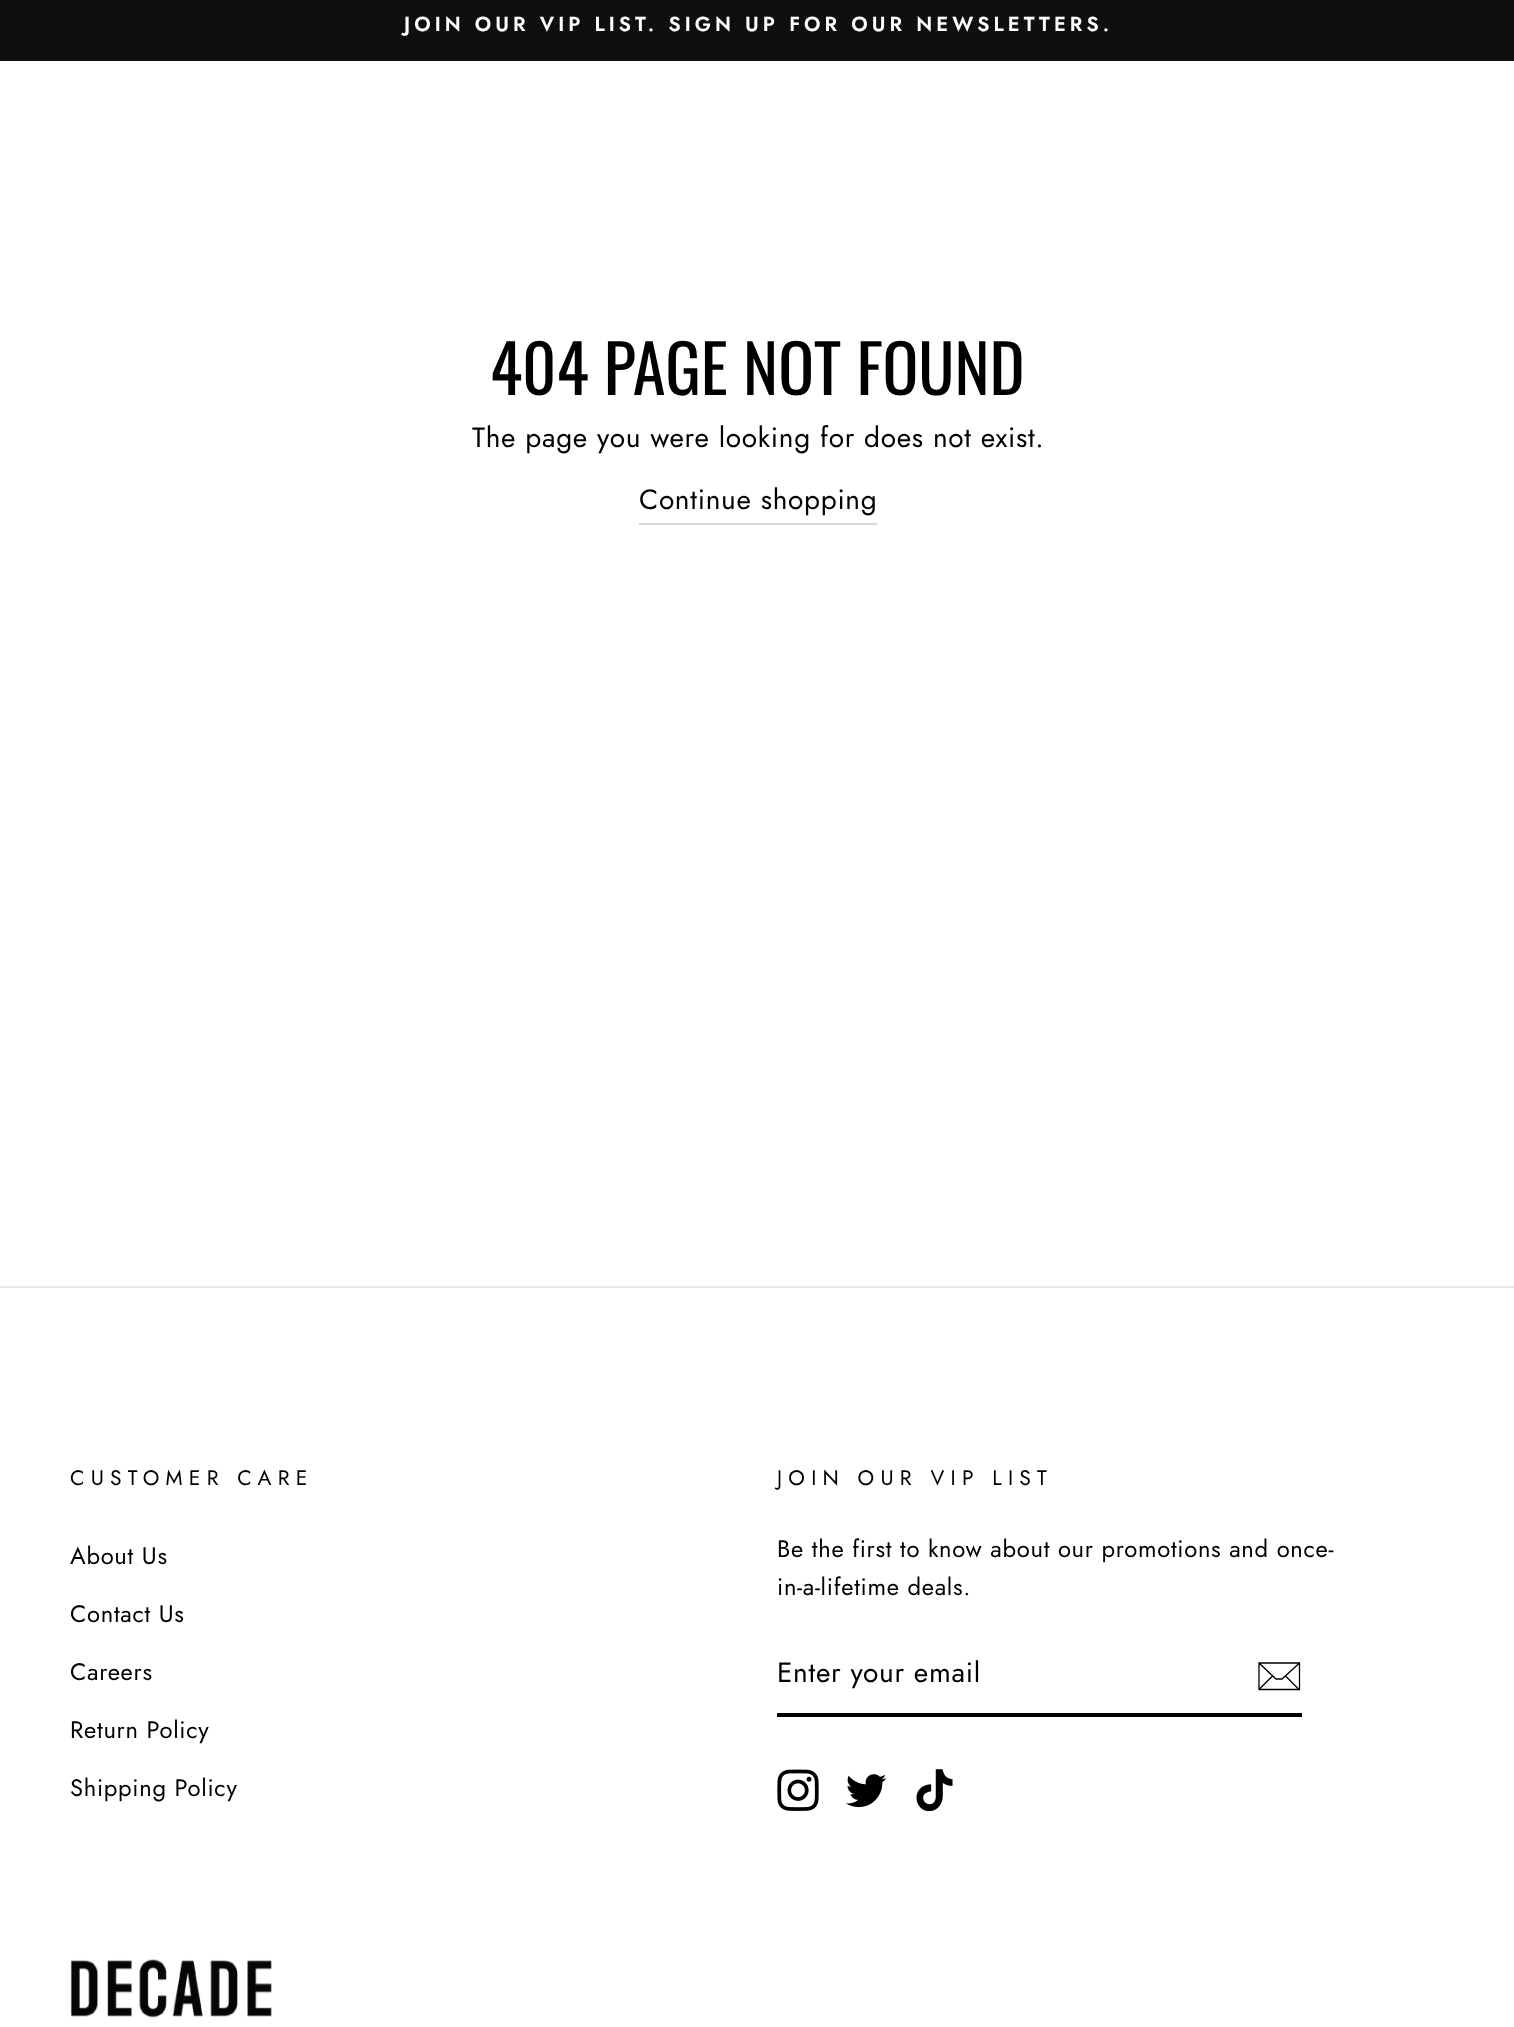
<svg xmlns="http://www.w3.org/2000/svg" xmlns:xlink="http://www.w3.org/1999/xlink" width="1514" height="2027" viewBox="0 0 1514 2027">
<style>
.cls-1{font:600 20.25px Jost;letter-spacing:4.05px;fill:#ffffff}
.cls-2{font:66.5px Oswald;fill:#000000}
.cls-3{font:28px Jost;letter-spacing:0.7px;fill:#000000}
.cls-4{font:21px Jost;letter-spacing:6.25px;fill:#000000}
.cls-5{font:23.8px Jost;letter-spacing:0.7px;fill:#000000}
</style>
<rect width="100%" height="100%" fill="#ffffff"/>
<rect fill="#0f0f0f" x="0" y="0" width="1514" height="61"/>
<rect fill="#d9d9d9" x="639" y="523" width="238" height="2"/>
<rect fill="#e8e8e1" x="0" y="1286" width="1514" height="2"/>
<rect fill="#000000" x="777" y="1713" width="525" height="4"/>
<path fill="none" stroke="#000000" stroke-width="1.3" d="M1299.5 1689.5H1259V1663H1299.5ZM1259 1663L1276 1679H1282L1299.5 1663M1272.5 1676L1259.5 1689M1299 1689.5L1285.5 1676"/>
<image xlink:href="image0.png" x="777" y="1769" width="42" height="42"/>
<image xlink:href="image1.png" x="846" y="1774" width="41" height="34"/>
<image xlink:href="image2.png" x="916" y="1769" width="37" height="42"/>
<image xlink:href="image3.png" x="70" y="1959" width="202" height="59"/>
<text class="cls-1" x="404" y="31">JOIN OUR VIP LIST. SIGN UP FOR OUR NEWSLETTERS.</text>
<text class="cls-2" x="490" y="395">404 PAGE NOT FOUND</text>
<text class="cls-3" x="472" y="447">The page you were looking for does not exist.</text>
<text class="cls-3" x="639" y="509">Continue shopping</text>
<text class="cls-4" x="70" y="1485">CUSTOMER CARE</text>
<text class="cls-5" x="70" y="1564">About Us</text>
<text class="cls-5" x="70" y="1622">Contact Us</text>
<text class="cls-5" x="70" y="1680">Careers</text>
<text class="cls-5" x="70" y="1738">Return Policy</text>
<text class="cls-5" x="70" y="1796">Shipping Policy</text>
<text class="cls-4" x="777" y="1485">JOIN OUR VIP LIST</text>
<text class="cls-5"><tspan x="777" y="1557">Be the first to know about our promotions and once-</tspan><tspan x="777" y="1595">in-a-lifetime deals.</tspan></text>
<text class="cls-3" x="777" y="1682">Enter your email</text>
</svg>
